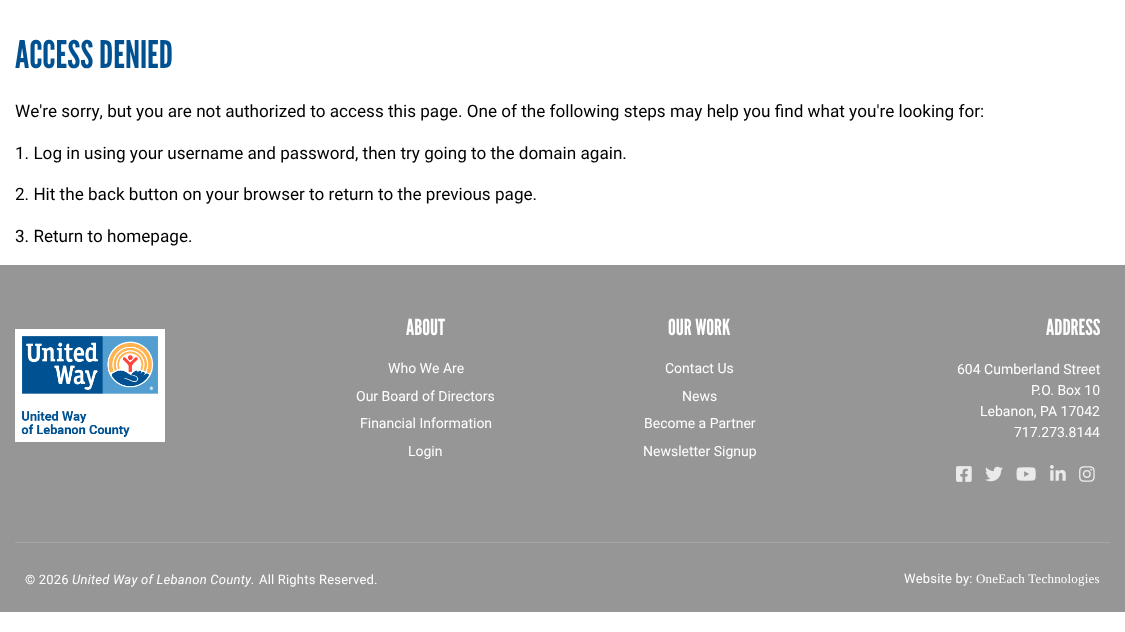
<svg xmlns="http://www.w3.org/2000/svg" xmlns:xlink="http://www.w3.org/1999/xlink" width="1125" height="632" viewBox="0 0 1125 632">
<style>
.cls-1{font:38px League Gothic;fill:#005191}
.cls-2{font:17.15px Roboto;fill:#000000}
.cls-3{font:22px League Gothic;fill:#ffffff}
.cls-4{font:14px Roboto;fill:#ffffff}
.cls-5{font:13px Roboto;letter-spacing:0.2px;fill:#ffffff}
.cls-6{font:italic 13px Roboto;letter-spacing:0.2px;fill:#ffffff}
.cls-7{font:13px Liberation Serif;letter-spacing:0.2px;fill:#ffffff}
</style>
<rect width="100%" height="100%" fill="#ffffff"/>
<rect fill="#969696" x="0" y="265" width="1125" height="347"/>
<image xlink:href="image0.png" x="15" y="329" width="150" height="113"/>
<image xlink:href="image1.png" x="956" y="466" width="16" height="16"/>
<image xlink:href="image2.png" x="985" y="466" width="18" height="16"/>
<image xlink:href="image3.png" x="1016" y="467" width="20" height="14"/>
<image xlink:href="image4.png" x="1050" y="465" width="16" height="16"/>
<image xlink:href="image5.png" x="1079" y="466" width="16" height="16"/>
<rect fill="#a6a6a6" x="15" y="542" width="1095" height="1"/>
<text class="cls-1" x="15" y="68">ACCESS DENIED</text>
<text class="cls-2" x="15" y="117">We're sorry, but you are not authorized to access this page. One of the following steps may help you find what you're looking for:</text>
<text class="cls-2" x="15" y="159">1. Log in using your username and password, then try going to the domain again.</text>
<text class="cls-2" x="15" y="200">2. Hit the back button on your browser to return to the previous page.</text>
<text class="cls-2" x="15" y="242">3. Return to homepage.</text>
<text class="cls-3" x="406" y="335">ABOUT</text>
<text class="cls-4" x="388" y="373">Who We Are</text>
<text class="cls-4" x="356" y="401">Our Board of Directors</text>
<text class="cls-4" x="360" y="428">Financial Information</text>
<text class="cls-4" x="408" y="456">Login</text>
<text class="cls-3" x="668" y="335">OUR WORK</text>
<text class="cls-4" x="665" y="373">Contact Us</text>
<text class="cls-4" x="682" y="401">News</text>
<text class="cls-4" x="644" y="428">Become a Partner</text>
<text class="cls-4" x="643" y="456">Newsletter Signup</text>
<text class="cls-3" x="1046" y="335">ADDRESS</text>
<text class="cls-4" x="957" y="374">604 Cumberland Street</text>
<text class="cls-4" x="1031" y="395">P.O. Box 10</text>
<text class="cls-4" x="980" y="416">Lebanon, PA 17042</text>
<text class="cls-4" x="1014" y="437">717.273.8144</text>
<text class="cls-5" x="25" y="584">© 2026</text>
<text class="cls-6" x="72" y="584">United Way of Lebanon County.</text>
<text class="cls-5" x="259" y="584">All Rights Reserved.</text>
<text class="cls-5" x="904" y="583">Website by:</text>
<text class="cls-7" x="976" y="583">OneEach Technologies</text>
</svg>
